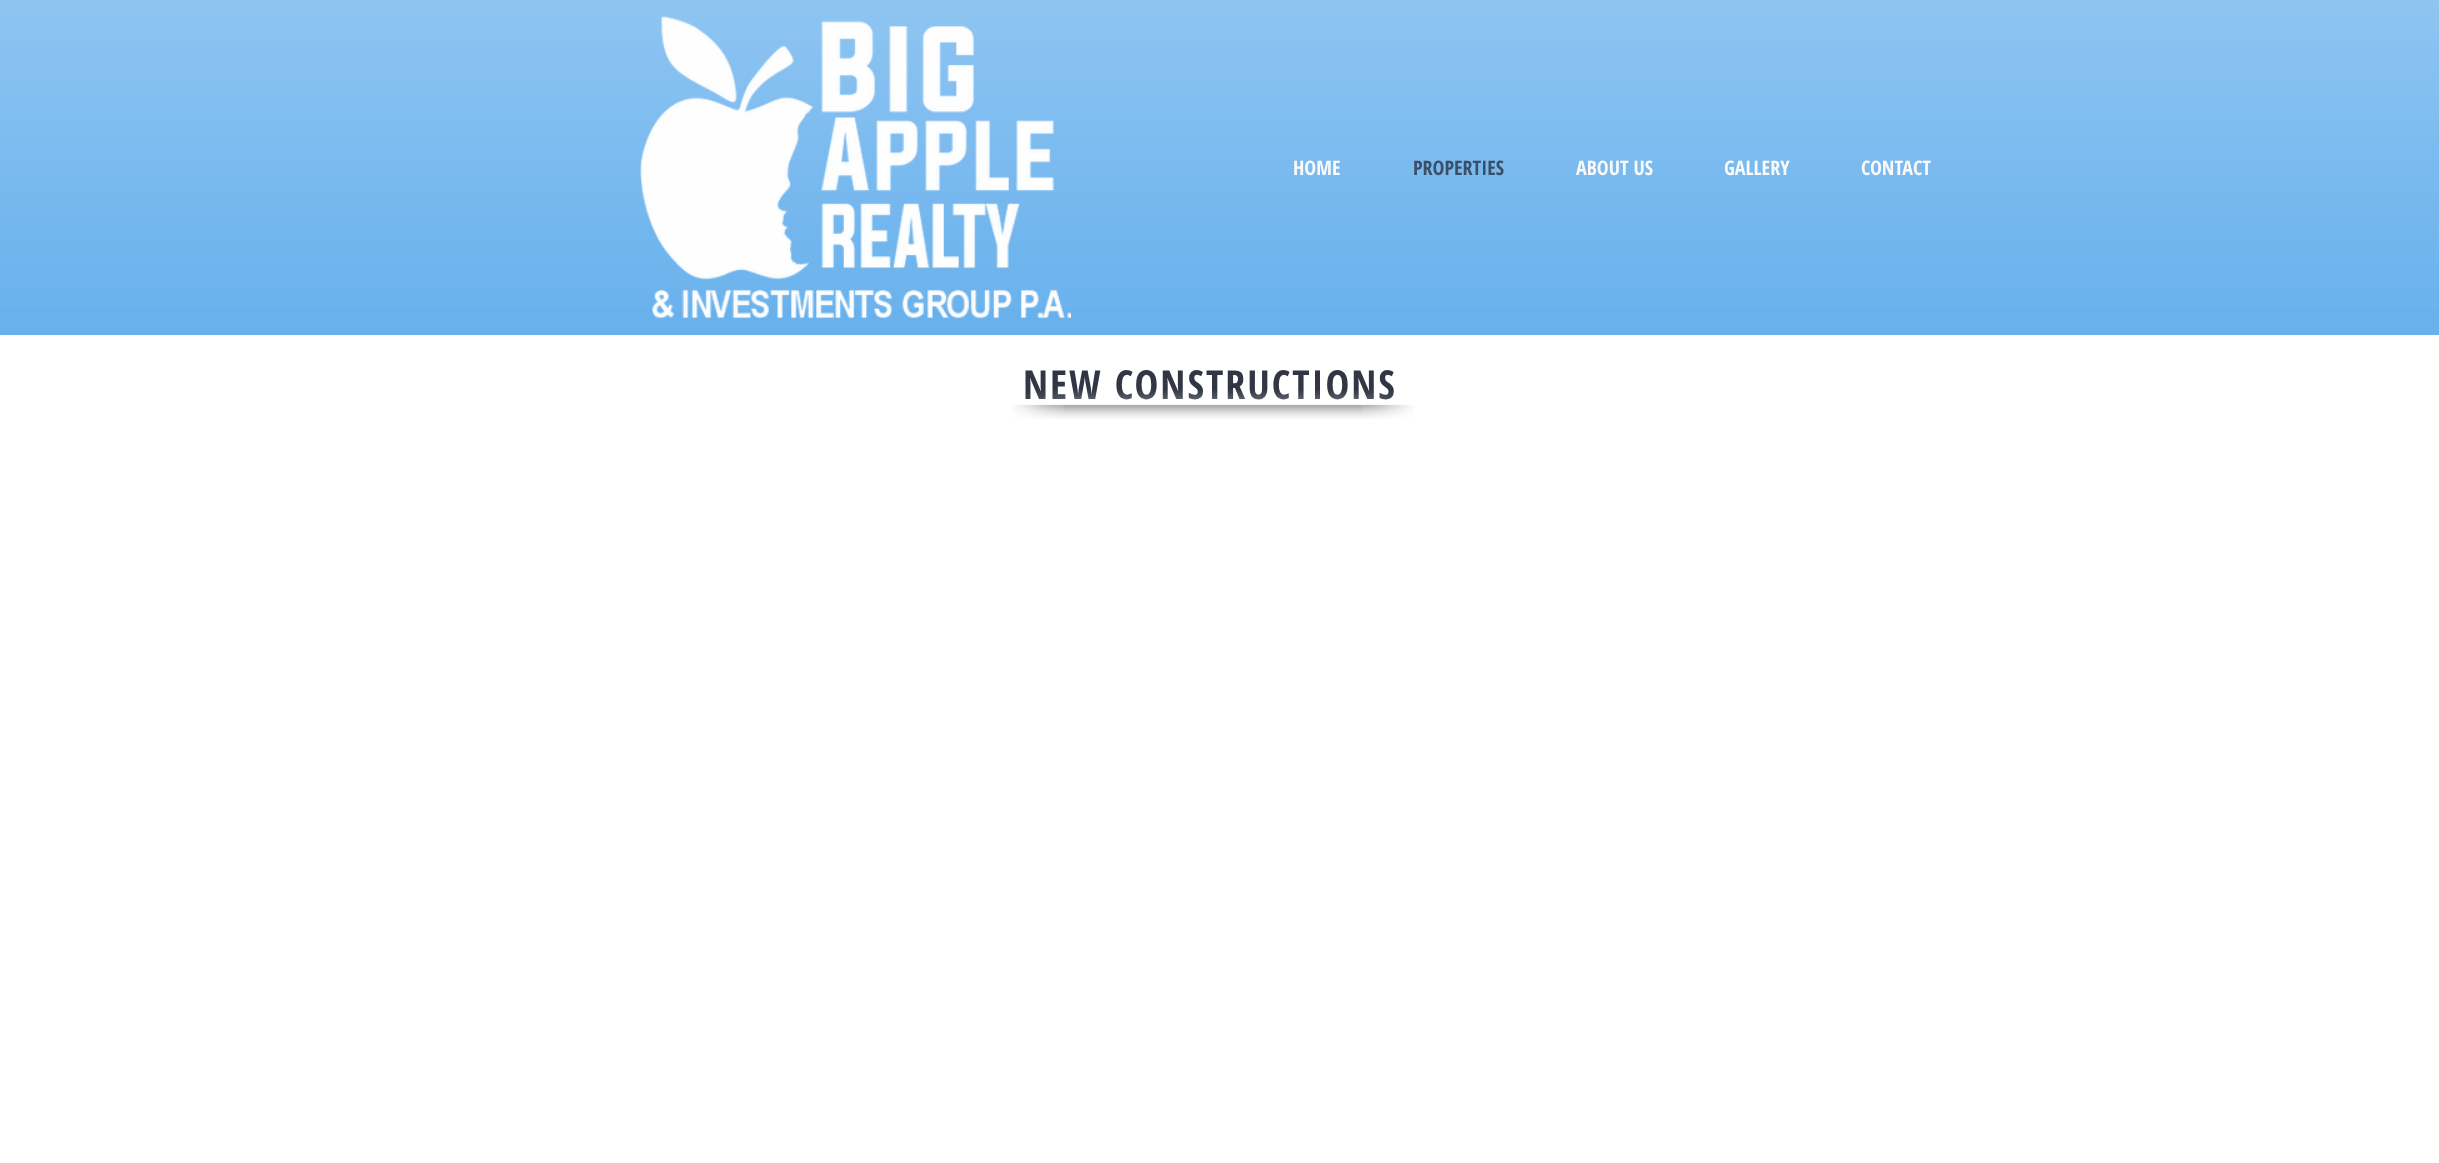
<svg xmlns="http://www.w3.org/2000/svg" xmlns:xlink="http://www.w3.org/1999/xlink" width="2439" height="1163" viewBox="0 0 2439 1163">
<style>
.cls-1{font:bold 20px Open Sans Condensed;fill:#fafafa}
.cls-2{font:bold 20px Open Sans Condensed;fill:#3b4e67}
.cls-3{font:bold 40px Open Sans Condensed;letter-spacing:2px;fill:#323644}
</style>
<rect width="100%" height="100%" fill="#ffffff"/>
<rect fill="#68b1ed" x="0" y="0" width="2439" height="335"/>
<image xlink:href="image0.png" x="0" y="0" width="2439" height="309"/>
<image xlink:href="image1.png" x="640" y="16" width="432" height="303"/>
<text class="cls-1" x="1293" y="175">HOME</text>
<text class="cls-2" x="1413" y="175">PROPERTIES</text>
<text class="cls-1" x="1576" y="175">ABOUT US</text>
<text class="cls-1" x="1724" y="175">GALLERY</text>
<text class="cls-1" x="1861" y="175">CONTACT</text>
<text class="cls-3" x="1023" y="399">NEW CONSTRUCTIONS</text>
<image xlink:href="image2.png" x="1063" y="390" width="300" height="29"/>
<image xlink:href="image3.png" x="1012" y="390" width="52" height="29"/>
<image xlink:href="image4.png" x="1362" y="390" width="52" height="29"/>
</svg>
